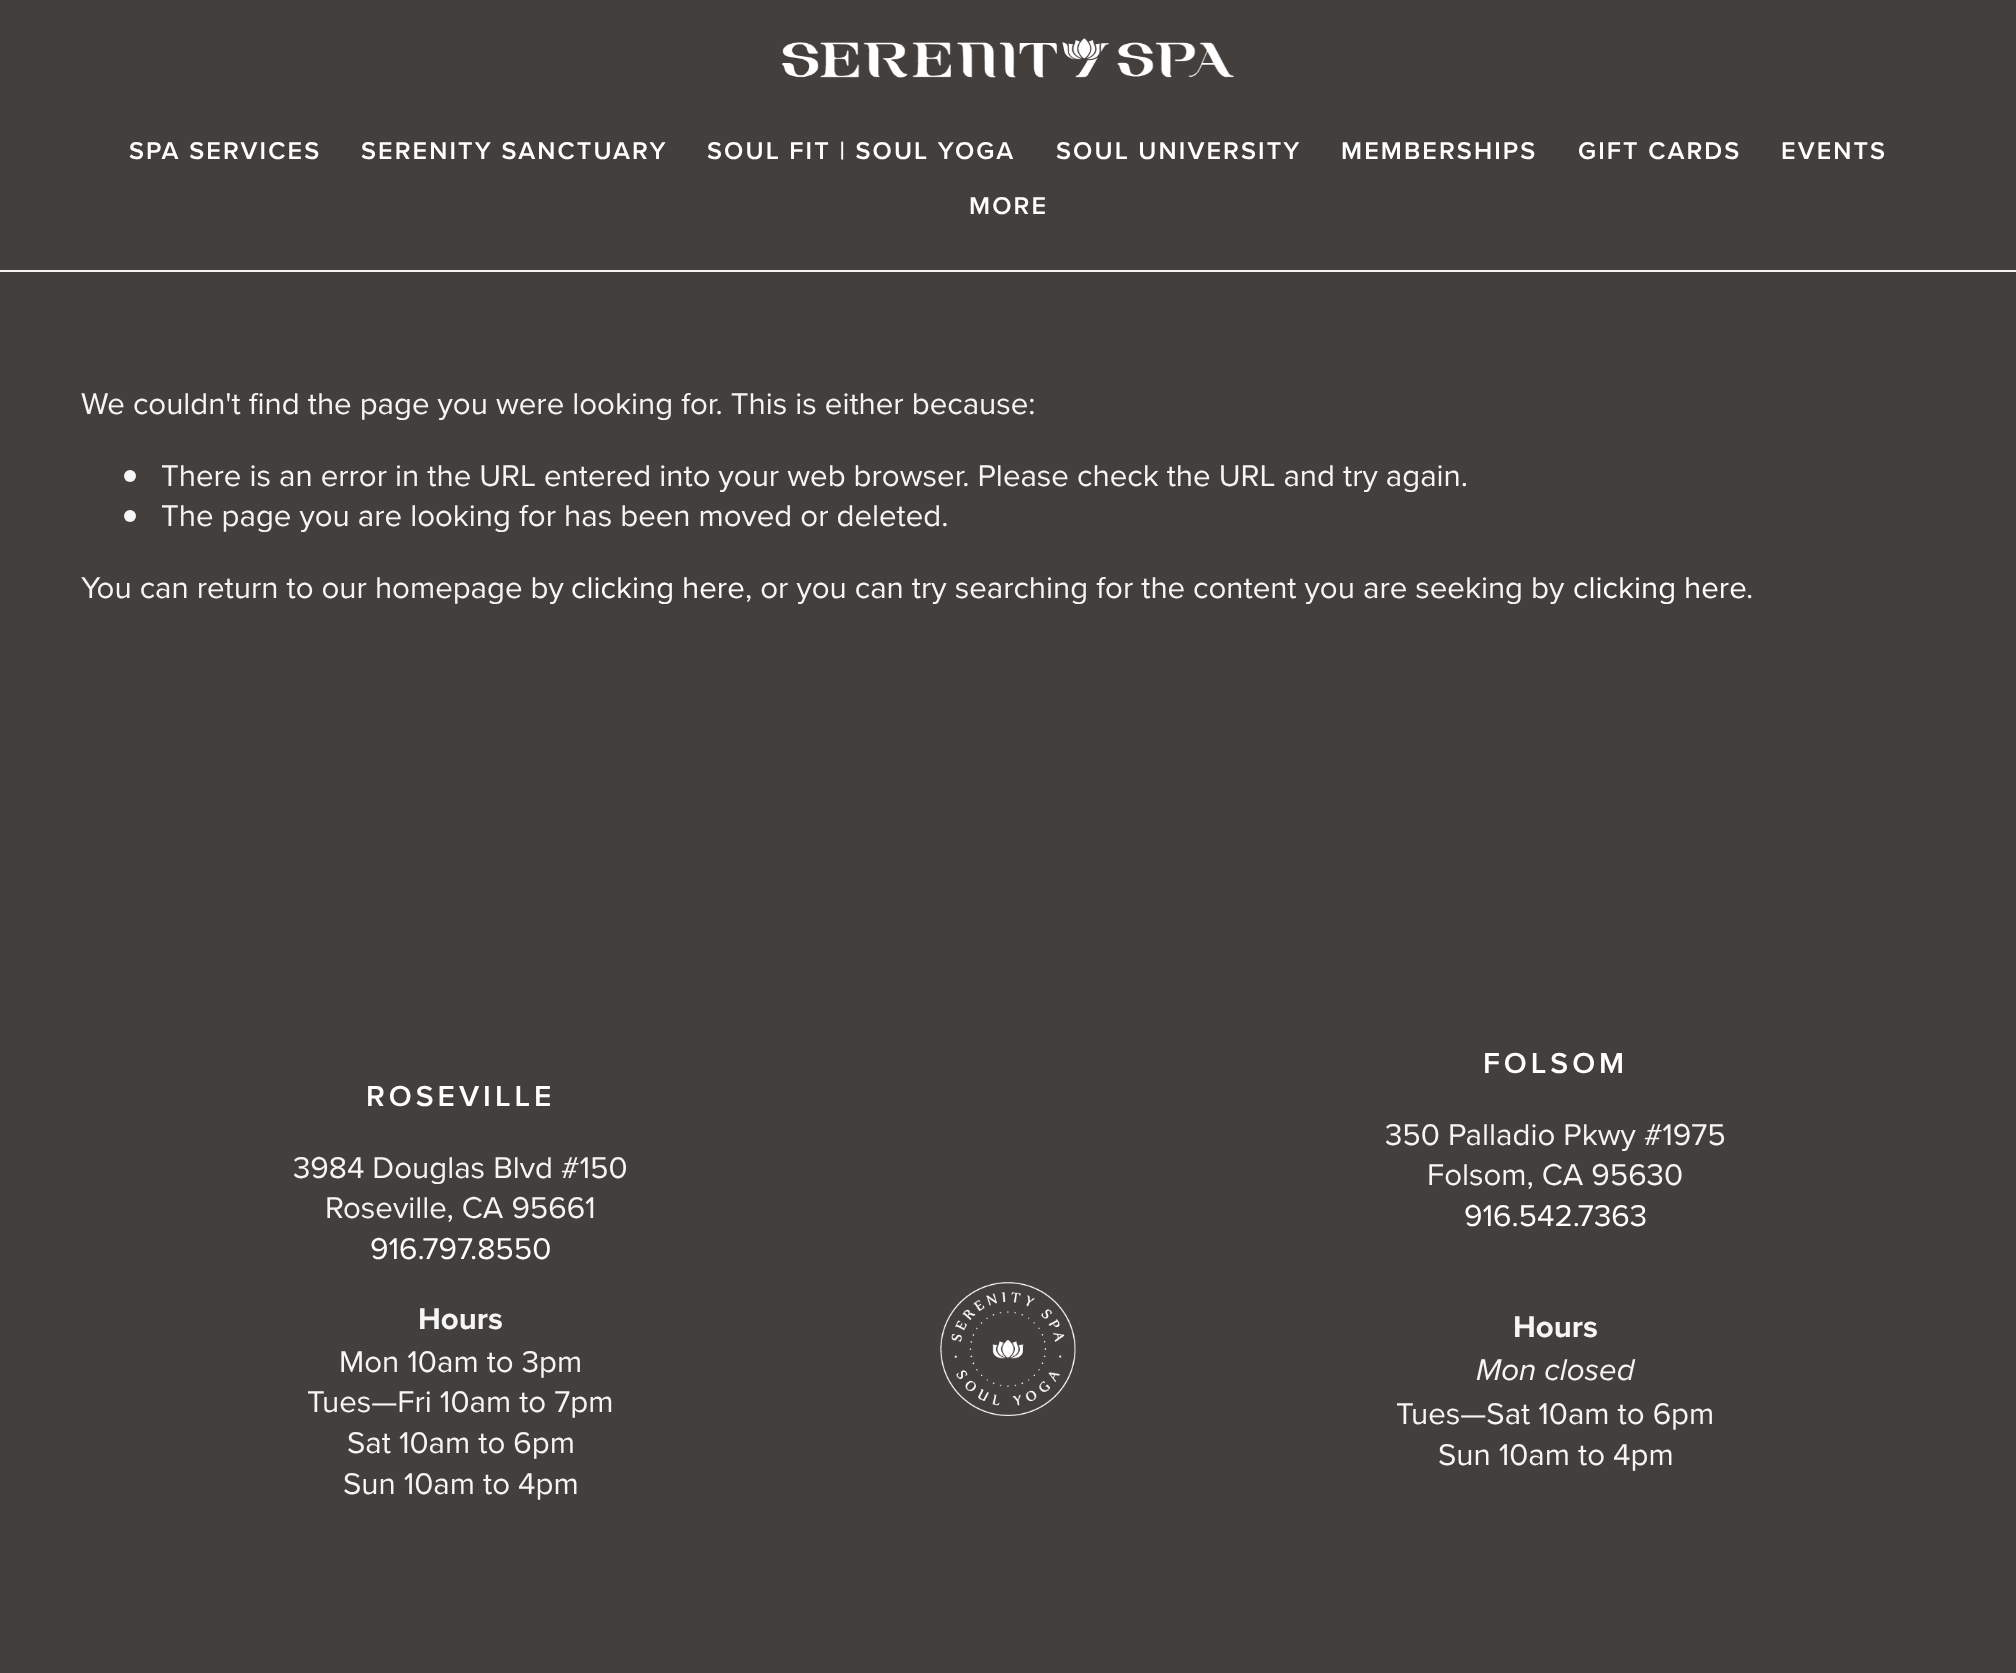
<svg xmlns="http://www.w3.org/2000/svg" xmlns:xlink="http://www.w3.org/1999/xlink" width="2016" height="1673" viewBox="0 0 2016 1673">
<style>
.cls-1{font:600 25.2px Proxima Nova;letter-spacing:2.1px;fill:#ffffff}
.cls-2{font:31.2px Proxima Nova;fill:#f5f5f5}
.cls-3{font:31.2px Proxima Nova;fill:#ffffff}
.cls-4{font:600 30px Proxima Nova;letter-spacing:4px;fill:#ffffff}
.cls-5{font:bold 31.2px Proxima Nova;fill:#f5f5f5}
.cls-6{font:italic 31.2px Proxima Nova;fill:#f5f5f5}
</style>
<rect width="100%" height="100%" fill="#423f3d"/>
<image xlink:href="image0.png" x="782" y="38" width="452" height="40"/>
<rect fill="#f5f5f5" x="0" y="270" width="2016" height="2"/>
<circle fill="#f5f5f5" cx="130" cy="476" r="6"/>
<circle fill="#f5f5f5" cx="130" cy="516" r="6"/>
<image xlink:href="image1.png" x="940" y="1282" width="136" height="134"/>
<text class="cls-1" x="129" y="159">SPA SERVICES</text>
<text class="cls-1" x="361" y="159">SERENITY SANCTUARY</text>
<text class="cls-1" x="707" y="159">SOUL FIT | SOUL YOGA</text>
<text class="cls-1" x="1056" y="159">SOUL UNIVERSITY</text>
<text class="cls-1" x="1341" y="159">MEMBERSHIPS</text>
<text class="cls-1" x="1578" y="159">GIFT CARDS</text>
<text class="cls-1" x="1781" y="159">EVENTS</text>
<text class="cls-1" x="969" y="214">MORE</text>
<text class="cls-2" x="81" y="414">We couldn't find the page you were looking for. This is either because:</text>
<text class="cls-2"><tspan x="161" y="486">There is an error in the URL entered into your web browser. Please check the URL and try again.</tspan><tspan x="161" y="526">The page you are looking for has been moved or deleted.</tspan></text>
<text class="cls-2" x="81" y="598">You can return to our homepage by</text>
<text class="cls-3" x="571" y="598">clicking here</text>
<text class="cls-2" x="745" y="598">, or you can try searching for the</text>
<text class="cls-2" x="1193" y="598">content you are seeking by</text>
<text class="cls-3" x="1573" y="598">clicking here</text>
<text class="cls-2" x="1746" y="598">.</text>
<text class="cls-4" x="366" y="1106">ROSEVILLE</text>
<text class="cls-2" x="293" y="1178">3984 Douglas Blvd #150</text>
<text class="cls-2" x="325" y="1218">Roseville, CA 95661</text>
<text class="cls-3" x="370" y="1259">916.797.8550</text>
<text class="cls-5" x="418" y="1329">Hours</text>
<text class="cls-2" x="339" y="1372">Mon 10am to 3pm</text>
<text class="cls-2" x="307" y="1412">Tues—Fri 10am to 7pm</text>
<text class="cls-2" x="347" y="1453">Sat 10am to 6pm</text>
<text class="cls-2" x="343" y="1494">Sun 10am to 4pm</text>
<text class="cls-4" x="1483" y="1073">FOLSOM</text>
<text class="cls-2" x="1385" y="1145">350 Palladio Pkwy #1975</text>
<text class="cls-2" x="1427" y="1185">Folsom, CA 95630</text>
<text class="cls-3" x="1464" y="1226">916.542.7363</text>
<text class="cls-5" x="1513" y="1337">Hours</text>
<text class="cls-6" x="1476" y="1380">Mon closed</text>
<text class="cls-2" x="1396" y="1424">Tues—Sat 10am to 6pm</text>
<text class="cls-2" x="1438" y="1465">Sun 10am to 4pm</text>
</svg>
